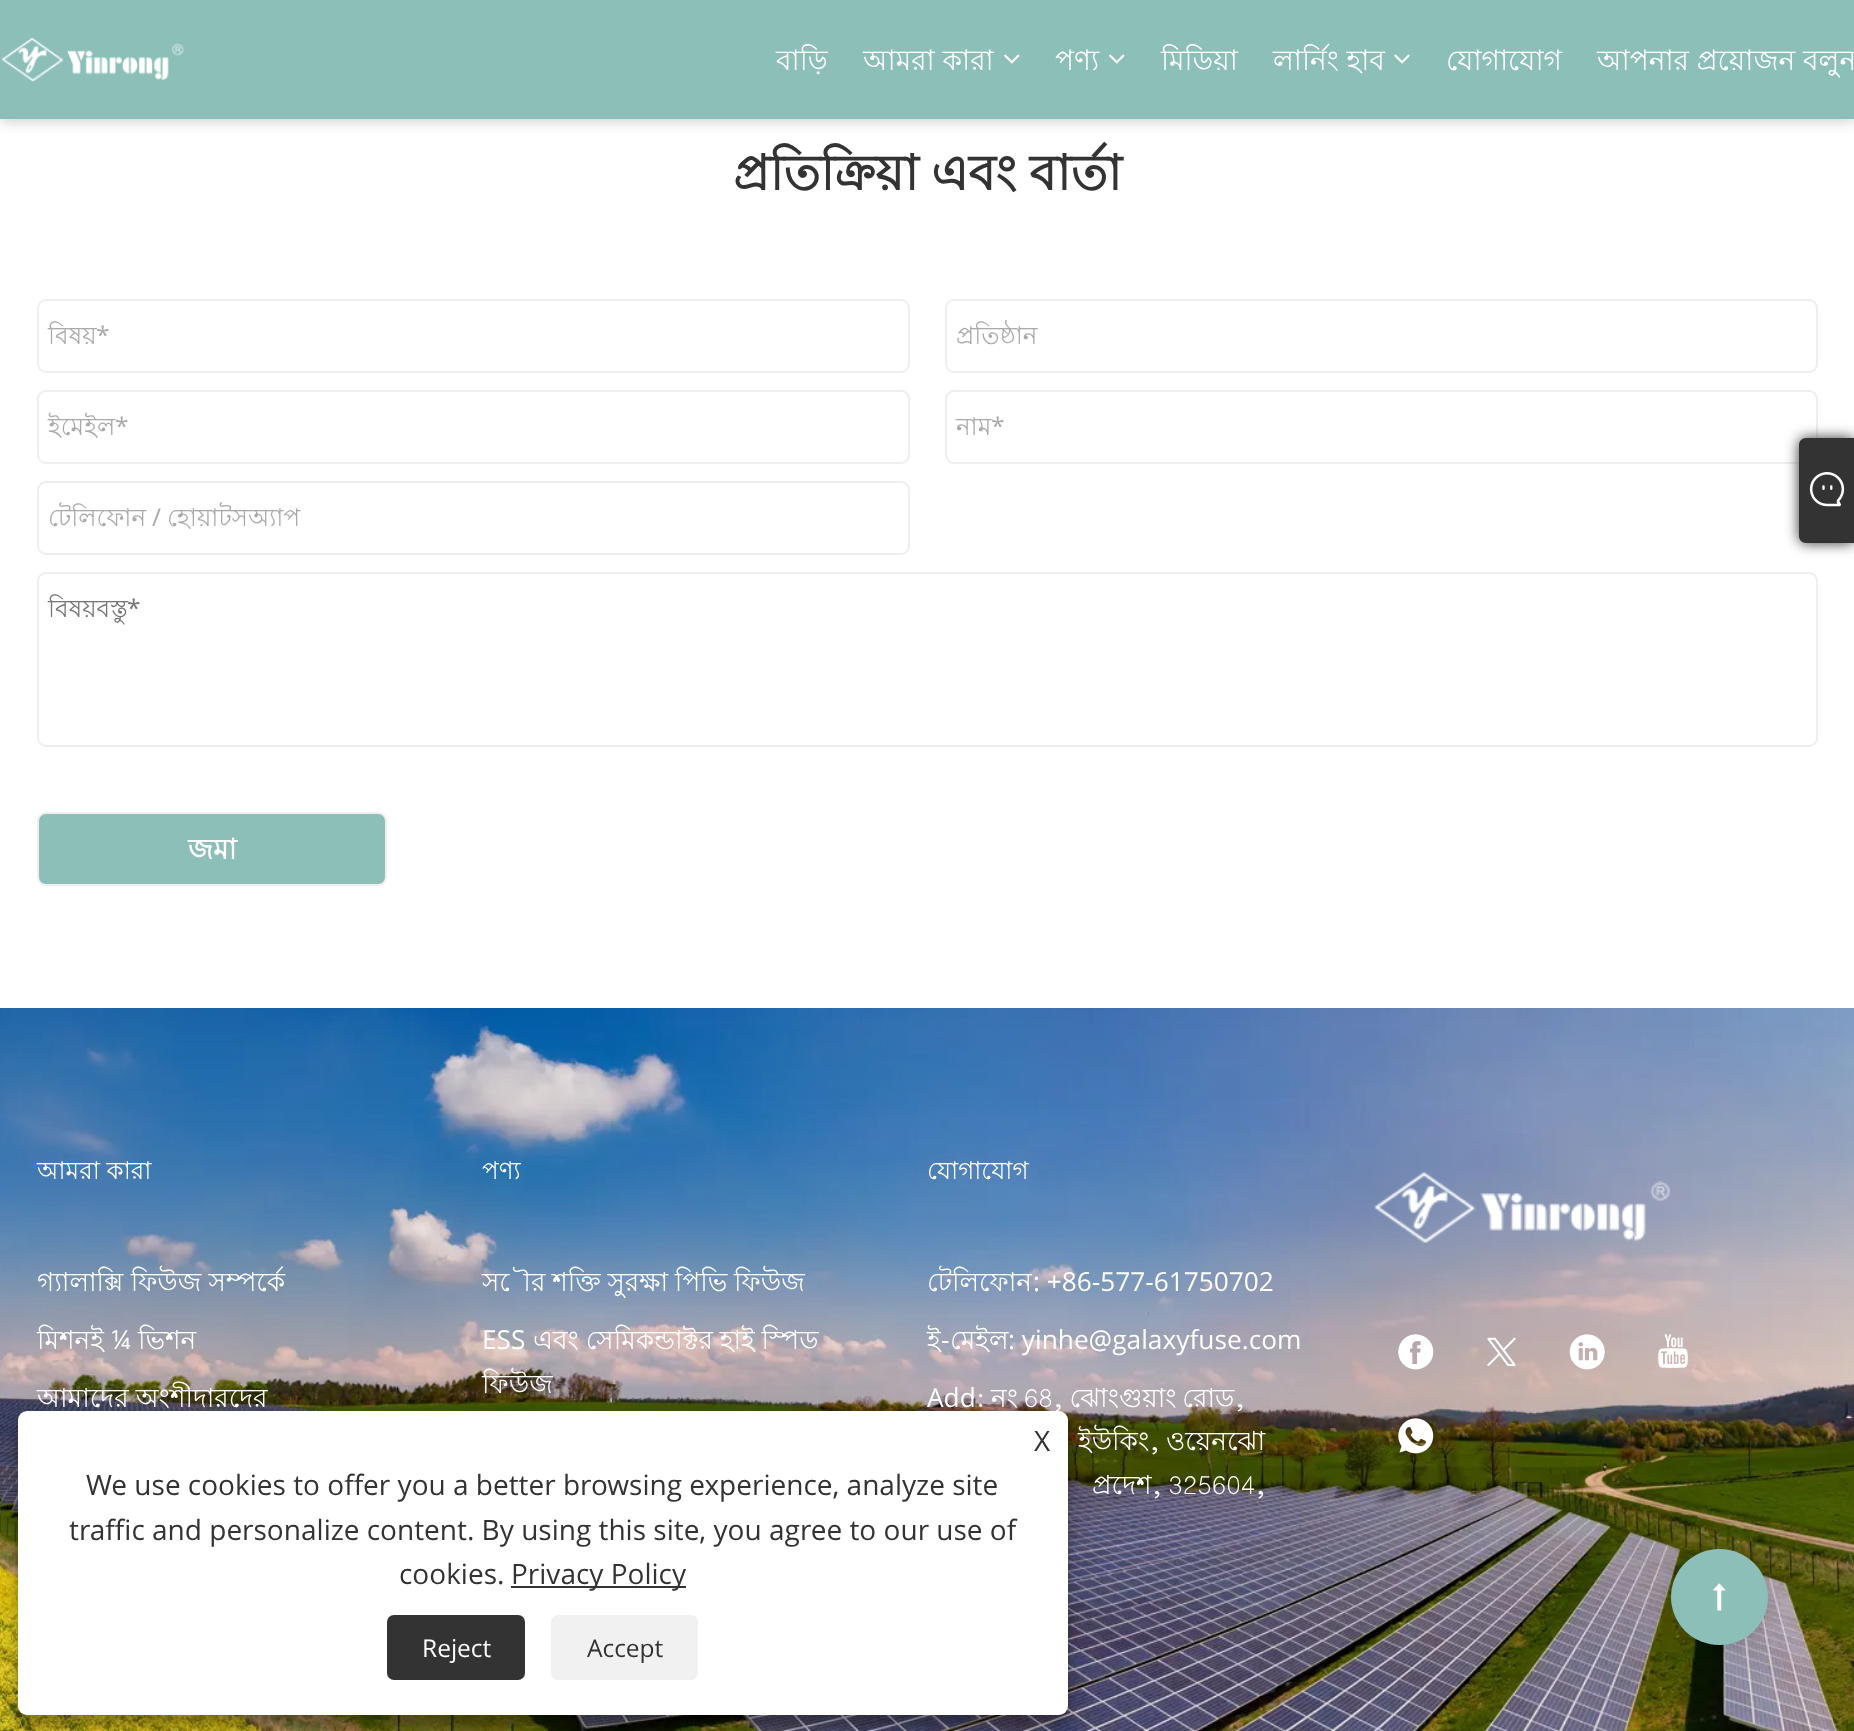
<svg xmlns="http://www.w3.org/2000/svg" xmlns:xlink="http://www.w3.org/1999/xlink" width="1854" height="1731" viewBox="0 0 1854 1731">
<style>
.cls-1{font:28px Lohit Bengali;fill:#ffffff}
.cls-2{font:bold 49px Lohit Bengali;fill:#333333}
.cls-3{font:24.5px Lohit Bengali;fill:#aaaaaa}
.cls-4{font:24.5px Open Sans;fill:#aaaaaa}
.cls-5{font:24.5px Lohit Bengali;fill:#757575}
.cls-6{font:24.5px Open Sans;fill:#757575}
.cls-7{font:bold 28px Lohit Bengali;fill:#ffffff}
.cls-8{font:24.5px Lohit Bengali;fill:#ffffff}
.cls-9{font:26.25px Lohit Bengali;fill:#ffffff}
.cls-10{font:26.25px Open Sans;fill:#ffffff}
.cls-11{font:28px Open Sans;fill:#333333}
.cls-12{font:24.5px Open Sans;fill:#ffffff}
.cls-13{font:24.5px Open Sans;fill:#333333}
</style>
<rect width="100%" height="100%" fill="#ffffff"/>
<rect fill="#000000" fill-opacity="0.2" filter="blur(7px)" x="0" y="2" width="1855" height="119"/>
<rect fill="#8cbfb8" x="0" y="0" width="1854" height="119"/>
<image xlink:href="image0.png" x="1" y="37" width="183" height="45"/>
<image xlink:href="image1.png" x="1004" y="54" width="16" height="10"/>
<image xlink:href="image1.png" x="1109" y="54" width="16" height="10"/>
<image xlink:href="image2.png" x="1394" y="54" width="16" height="10"/>
<rect fill="none" stroke="#eeeeee" stroke-width="2" x="38" y="300" width="871" height="72" rx="8"/>
<rect fill="none" stroke="#eeeeee" stroke-width="2" x="946" y="300" width="871" height="72" rx="8"/>
<rect fill="none" stroke="#eeeeee" stroke-width="2" x="38" y="391" width="871" height="72" rx="8"/>
<rect fill="none" stroke="#eeeeee" stroke-width="2" x="946" y="391" width="871" height="72" rx="8"/>
<rect fill="none" stroke="#eeeeee" stroke-width="2" x="38" y="482" width="871" height="72" rx="8"/>
<rect fill="none" stroke="#eeeeee" stroke-width="2" x="38" y="573" width="1779" height="173" rx="8"/>
<rect fill="#8cbfb8" stroke="#eeeeee" stroke-width="2" x="38" y="813" width="348" height="72" rx="8"/>
<image xlink:href="image3.png" x="0" y="1008" width="1854" height="723"/>
<image xlink:href="image4.png" x="1373" y="1172" width="297" height="71"/>
<image xlink:href="image5.png" x="1398" y="1334" width="36" height="36"/>
<image xlink:href="image6.png" x="1487" y="1337" width="29" height="30"/>
<image xlink:href="image7.png" x="1569" y="1334" width="36" height="36"/>
<image xlink:href="image8.png" x="1658" y="1334" width="30" height="34"/>
<image xlink:href="image9.png" x="1398" y="1418" width="36" height="36"/>
<rect fill="#333333" filter="blur(7px)" x="1799" y="438" width="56" height="105" rx="7"/>
<path fill="#333333" d="M1806 438H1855V543H1806C1802 543 1799 540 1799 536V445C1799 441 1802 438 1806 438Z"/>
<image xlink:href="image10.png" x="1809" y="472" width="36" height="35"/>
<rect fill="#000000" fill-opacity="0.23" filter="blur(5px)" x="18" y="1421" width="1050" height="305" rx="9"/>
<rect fill="#000000" fill-opacity="0.19" filter="blur(17.5px)" x="18" y="1428" width="1050" height="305" rx="9"/>
<rect fill="#ffffff" x="18" y="1411" width="1050" height="304" rx="9"/>
<rect fill="#333333" x="511" y="1586" width="175" height="2"/>
<rect fill="#333333" x="387" y="1615" width="138" height="65" rx="7"/>
<rect fill="#f1f1f1" x="551" y="1615" width="147" height="65" rx="7"/>
<rect fill="#000000" fill-opacity="0.15" filter="blur(9px)" x="1671" y="1549" width="97" height="96" rx="48"/>
<rect fill="#8cbfb8" x="1671" y="1549" width="97" height="96" rx="48"/>
<image xlink:href="image11.png" x="1713" y="1583" width="13" height="28"/>
<text class="cls-1" x="776" y="70">বাড়ি</text>
<text class="cls-1" x="863" y="70">আমরা কারা</text>
<text class="cls-1" x="1055" y="70">পণ্য</text>
<text class="cls-1" x="1161" y="70">মিডিয়া</text>
<text class="cls-1" x="1273" y="70">লার্নিং হাব</text>
<text class="cls-1" x="1446" y="70">যোগাযোগ</text>
<text class="cls-1" x="1597" y="70">আপনার প্রয়োজন বলুন</text>
<text class="cls-2" x="733" y="190" word-spacing="-1">প্রতিক্রিয়া এবং বার্তা</text>
<text class="cls-3" x="48" y="344">বিষয়</text>
<text class="cls-4" x="96" y="344">*</text>
<text class="cls-3" x="956" y="344">প্রতিষ্ঠান</text>
<text class="cls-3" x="48" y="435">ইমেইল</text>
<text class="cls-4" x="115" y="435">*</text>
<text class="cls-3" x="956" y="435">নাম</text>
<text class="cls-4" x="991" y="435">*</text>
<text class="cls-3" x="48" y="526">টেলিফোন</text>
<text class="cls-4" x="152" y="526">/</text>
<text class="cls-3" x="167" y="526">হোয়াটসঅ্যাপ</text>
<text class="cls-5" x="48" y="617">বিষয়বস্তু</text>
<text class="cls-6" x="127" y="617">*</text>
<text class="cls-7" x="188" y="859">জমা</text>
<text class="cls-8" x="37" y="1179">আমরা কারা</text>
<text class="cls-9" x="37" y="1291">গ্যালাক্সি ফিউজ সম্পর্কে</text>
<text class="cls-9" x="37" y="1349">মিশনই</text>
<text class="cls-10" x="111" y="1349">¼</text>
<text class="cls-9" x="138" y="1349">ভিশন</text>
<text class="cls-9" x="37" y="1407">আমাদের অংশীদারদের</text>
<text class="cls-8" x="482" y="1179">পণ্য</text>
<text class="cls-9" x="482" y="1291" word-spacing="-0.5">সৌর শক্তি সুরক্ষা পিভি ফিউজ</text>
<text class="cls-10" x="482" y="1349">ESS</text>
<text class="cls-9" x="533" y="1349" word-spacing="-0.5">এবং সেমিকন্ডাক্টর হাই স্পিড</text>
<text class="cls-9" x="482" y="1393">ফিউজ</text>
<text class="cls-8" x="927" y="1179">যোগাযোগ</text>
<text class="cls-9" x="927" y="1291">টেলিফোন</text>
<text class="cls-10" x="1033" y="1291">: +86-577-61750702</text>
<text class="cls-9" x="927" y="1349">ই</text>
<text class="cls-10" x="941" y="1349">-</text>
<text class="cls-9" x="950" y="1349">মেইল</text>
<text class="cls-10" x="1008" y="1349">: yinhe@galaxyfuse.com</text>
<text class="cls-10" x="927" y="1407">Add</text>
<text class="cls-9" x="976" y="1407" word-spacing="-1.5">: নং 68, ঝোংগুয়াং রোড,</text>
<text class="cls-9" x="1078" y="1450" word-spacing="-1.5">ইউকিং, ওয়েনঝো</text>
<text class="cls-9" x="1092" y="1494" word-spacing="-1.5">প্রদেশ, 325604,</text>
<text class="cls-11" x="1034" y="1451">X</text>
<text class="cls-11" x="86" y="1495">We use cookies to offer you a better browsing experience, analyze site</text>
<text class="cls-11" x="69" y="1540">traffic and personalize content. By using this site, you agree to our use of</text>
<text class="cls-11" x="399" y="1584">cookies.</text>
<text class="cls-11" x="511" y="1584">Privacy Policy</text>
<text class="cls-12" x="422" y="1657">Reject</text>
<text class="cls-13" x="587" y="1657">Accept</text>
</svg>
